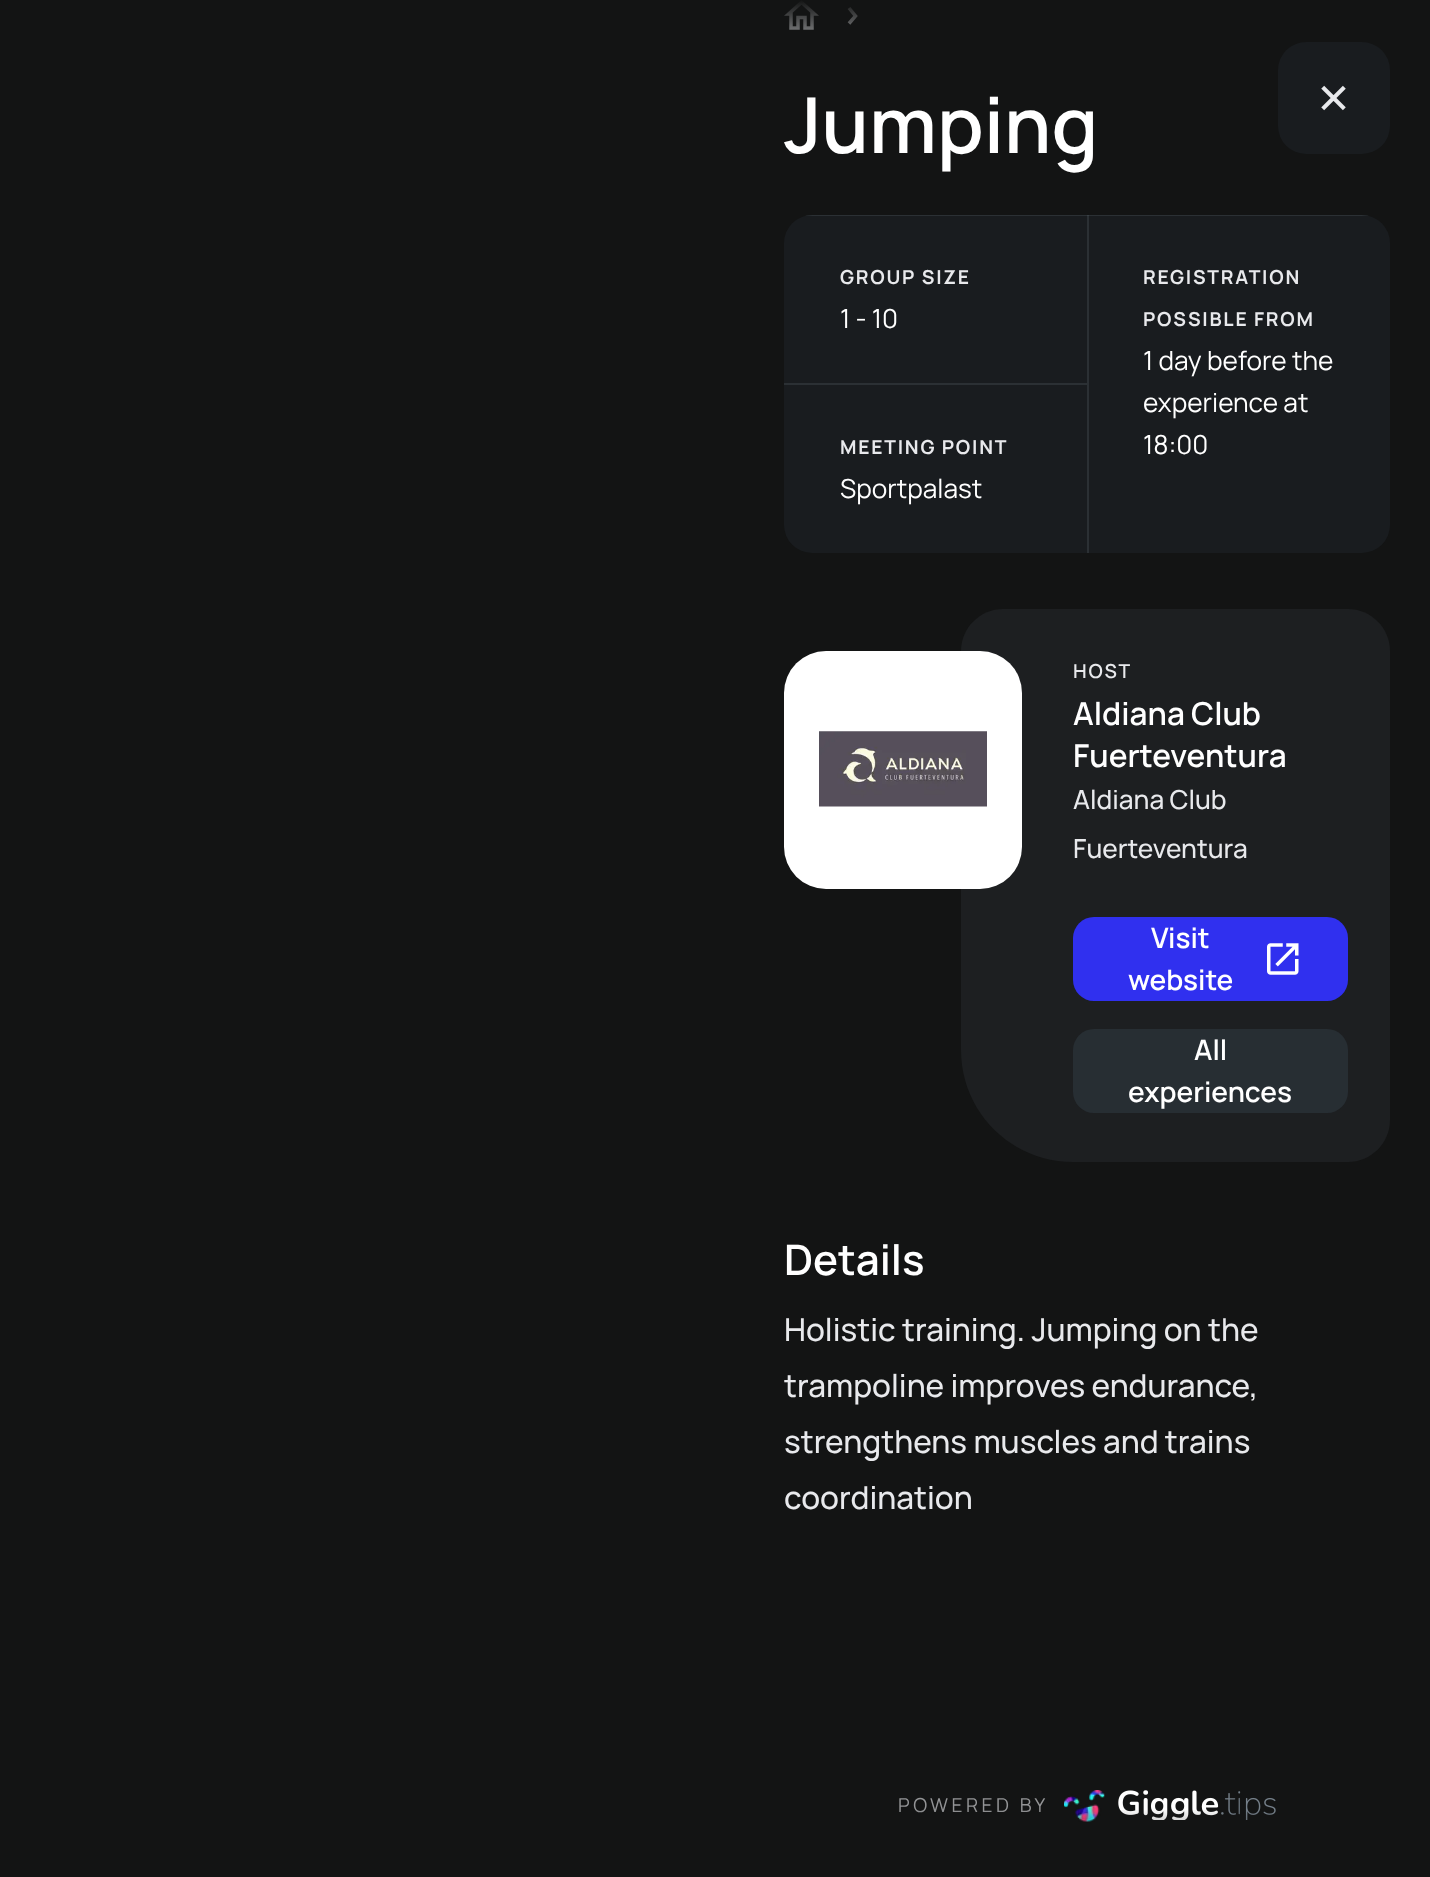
<svg xmlns="http://www.w3.org/2000/svg" xmlns:xlink="http://www.w3.org/1999/xlink" width="1430" height="1877" viewBox="0 0 1430 1877">
<style>
.cls-1{font:600 77px Manrope;fill:#ffffff}
.cls-2{font:bold 19.25px Manrope;letter-spacing:1.75px;fill:#e8e9ec}
.cls-3{font:26.25px Manrope;fill:#ffffff}
.cls-4{font:600 19.25px Manrope;letter-spacing:1.75px;fill:#e8e9ec}
.cls-5{font:600 31.5px Manrope;fill:#ffffff}
.cls-6{font:500 26.25px Manrope;fill:#e8e9ec}
.cls-7{font:600 28px Manrope;fill:#ffffff}
.cls-8{font:600 42px Manrope;fill:#ffffff}
.cls-9{font:500 31.5px Manrope;fill:#e8e9ec}
.cls-10{font:19.25px Manrope;letter-spacing:3.5px;fill:#939496}
</style>
<defs>
<linearGradient id="g1" gradientUnits="userSpaceOnUse" x1="1087" y1="0" x2="1087" y2="70"><stop offset="0" stop-color="#131414"/><stop offset="1" stop-color="#131414" stop-opacity="0"/></linearGradient>
<clipPath id="clip1"><rect x="784" y="215" width="606" height="338" rx="28"/></clipPath>
<linearGradient id="g2" gradientUnits="userSpaceOnUse" x1="1087" y1="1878" x2="1087" y2="1808"><stop offset="0" stop-color="#131414"/><stop offset="1" stop-color="#131414" stop-opacity="0"/></linearGradient>
</defs>
<rect width="100%" height="100%" fill="#131414"/>
<image xlink:href="image0.png" x="784" y="0" width="35" height="30"/>
<path fill="none" stroke="#e8e9ec" stroke-width="3.5" d="M849 8L855.5 16L849 23.5"/>
<rect fill="url(#g1)" x="784" y="0" width="74" height="30"/>
<rect fill="#191c1f" x="784" y="215" width="606" height="338" rx="28"/>
<g clip-path="url(#clip1)">
<rect fill="#75808a" fill-opacity="0.2" x="1087" y="215" width="282" height="1"/>
</g>
<rect fill="#75808a" fill-opacity="0.2" x="1087" y="215" width="2" height="338"/>
<g clip-path="url(#clip1)">
<rect fill="#75808a" fill-opacity="0.2" x="805" y="215" width="282" height="1"/>
</g>
<rect fill="#2b3034" x="784" y="383" width="303" height="2"/>
<path fill="#1d1f21" d="M1003 609H1348C1371 609 1390 628 1390 651V1120C1390 1143 1371 1162 1348 1162H1073C1011 1162 961 1112 961 1050V651C961 628 980 609 1003 609Z"/>
<rect fill="#ffffff" x="784" y="651" width="238" height="238" rx="42"/>
<image xlink:href="image1.png" x="819" y="731" width="168" height="76"/>
<rect fill="#3030ef" x="1073" y="917" width="275" height="84" rx="21"/>
<image xlink:href="image2.png" x="1267" y="943" width="32" height="32"/>
<rect fill="#272e33" x="1073" y="1029" width="275" height="84" rx="21"/>
<image xlink:href="image3.png" x="1064" y="1790" width="41" height="32"/>
<image xlink:href="image4.png" x="1118" y="1790" width="158" height="30"/>
<rect fill="#191c1f" x="942" y="1876" width="290" height="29" rx="28"/>
<rect fill="#191c1f" x="1278" y="42" width="112" height="112" rx="28"/>
<image xlink:href="image5.png" x="1321" y="85" width="25" height="26"/>
<text class="cls-1" x="784" y="153">Jumping</text>
<text class="cls-2" x="840" y="284">GROUP SIZE</text>
<text class="cls-3" x="840" y="328">1 - 10</text>
<text class="cls-2" x="1143" y="284">REGISTRATION</text>
<text class="cls-2" x="1143" y="326">POSSIBLE FROM</text>
<text class="cls-3"><tspan x="1143" y="370">1 day before the</tspan><tspan x="1143" y="412">experience at</tspan><tspan x="1143" y="454">18:00</tspan></text>
<text class="cls-2" x="840" y="454">MEETING POINT</text>
<text class="cls-3" x="840" y="498">Sportpalast</text>
<text class="cls-4" x="1073" y="678">HOST</text>
<text class="cls-5"><tspan x="1073" y="725">Aldiana Club</tspan><tspan x="1073" y="767">Fuerteventura</tspan></text>
<text class="cls-6"><tspan x="1073" y="809">Aldiana Club</tspan><tspan x="1073" y="858">Fuerteventura</tspan></text>
<text class="cls-7" x="1151" y="948">Visit</text>
<text class="cls-7" x="1128" y="990">website</text>
<text class="cls-7" x="1194" y="1060">All</text>
<text class="cls-7" x="1128" y="1102">experiences</text>
<text class="cls-8" x="784" y="1275">Details</text>
<text class="cls-9"><tspan x="784" y="1341">Holistic training. Jumping on the</tspan><tspan x="784" y="1397">trampoline improves endurance,</tspan><tspan x="784" y="1453">strengthens muscles and trains</tspan><tspan x="784" y="1509">coordination</tspan></text>
<text class="cls-10" x="898" y="1812">POWERED BY</text>
<rect fill="url(#g2)" x="900" y="1810" width="376" height="67"/>
</svg>
